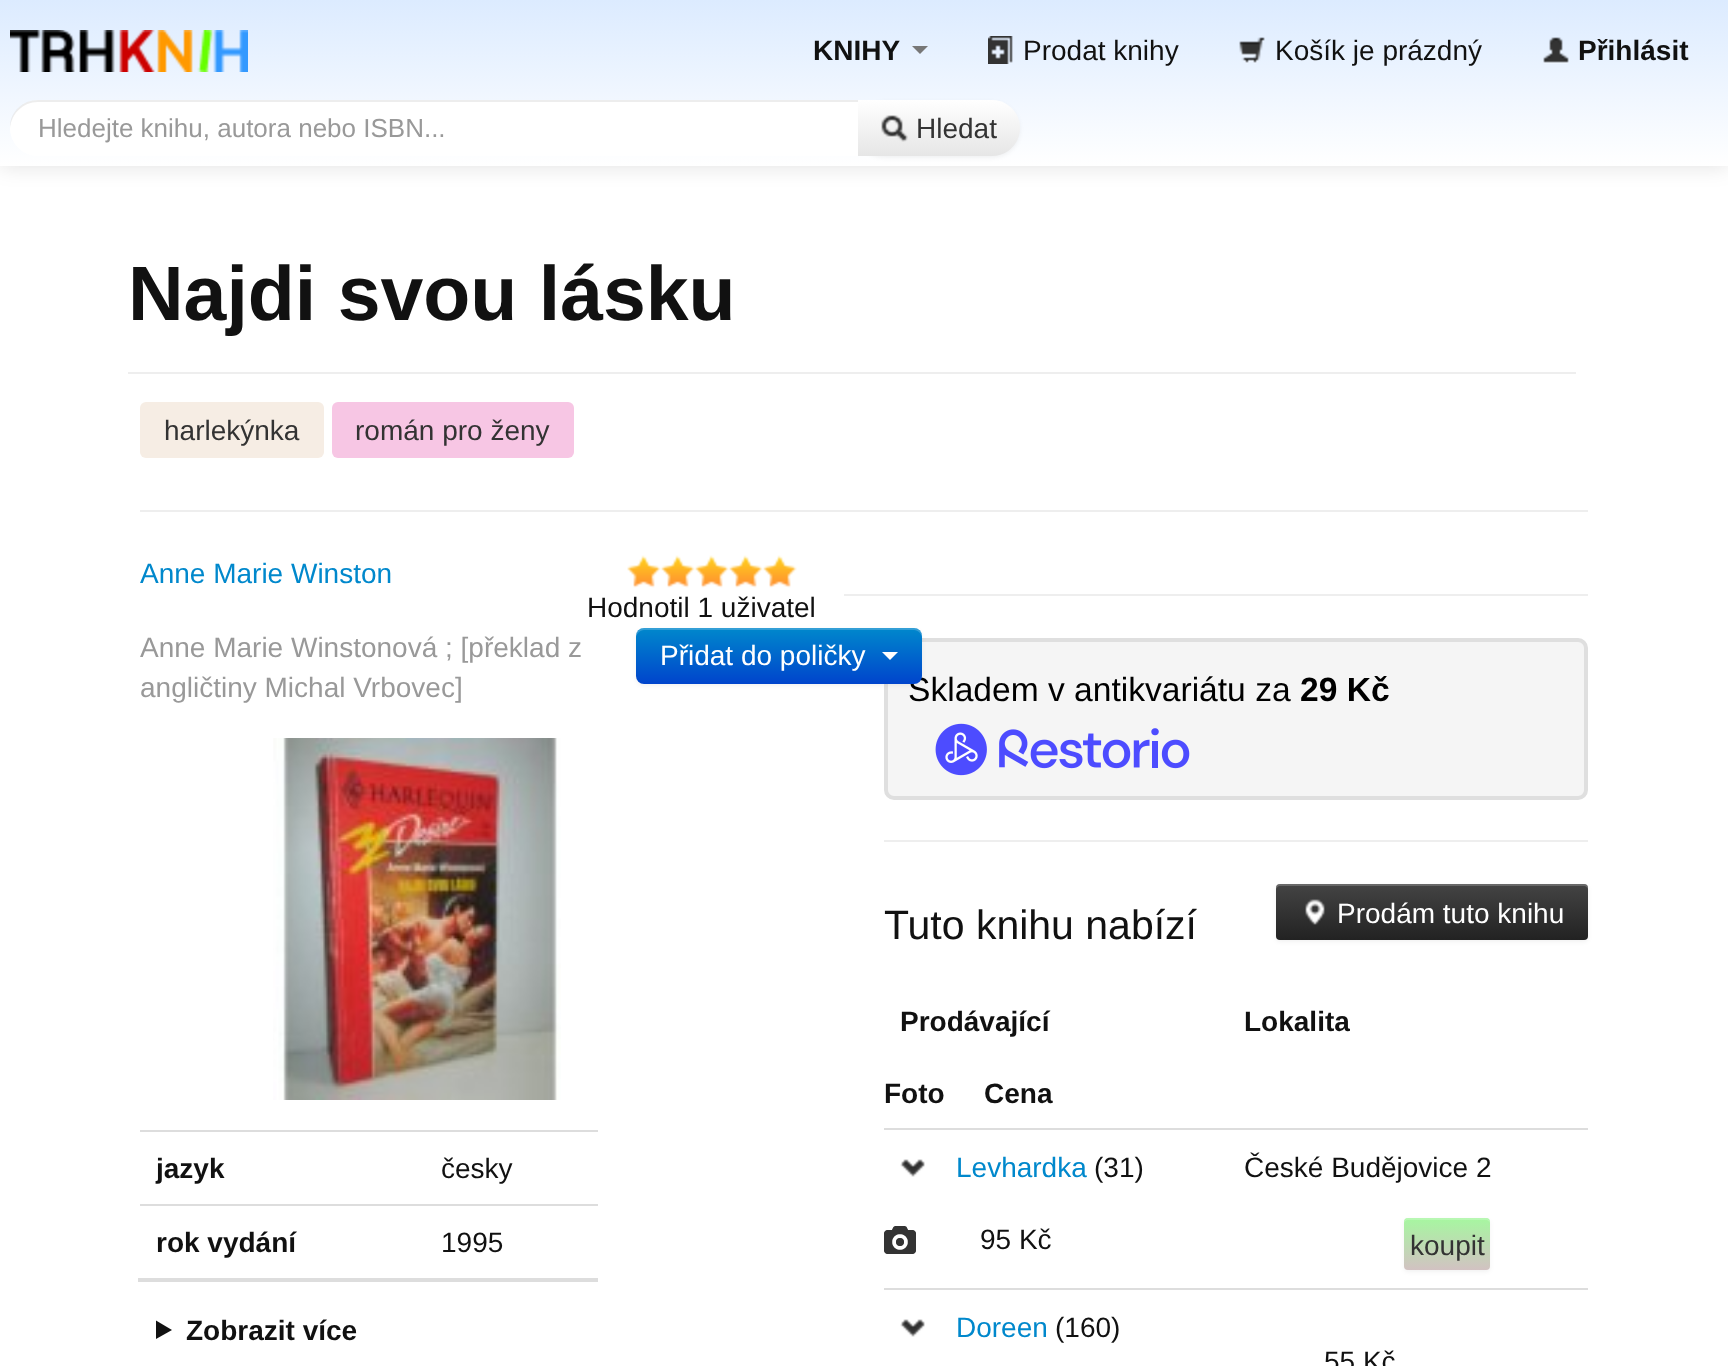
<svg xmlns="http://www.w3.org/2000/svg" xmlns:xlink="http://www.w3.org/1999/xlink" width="1728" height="1366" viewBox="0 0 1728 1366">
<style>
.cls-1{font:bold 28px Liberation Sans;fill:#111111}
.cls-2{font:28px Liberation Sans;fill:#111111}
.cls-3{font:26px Liberation Sans;fill:#999999}
.cls-4{font:28px Liberation Sans;fill:#333333}
.cls-5{font:bold 77px Liberation Sans;fill:#111111}
.cls-6{font:28px Liberation Sans;fill:#0088cc}
.cls-7{font:28px Liberation Sans;fill:#999999}
.cls-8{font:33.6px Liberation Sans;fill:#000000}
.cls-9{font:28px Liberation Sans;fill:#ffffff}
.cls-10{font:bold 33.6px Liberation Sans;fill:#000000}
.cls-11{font:41px Liberation Sans;fill:#111111}
</style>
<defs>
<linearGradient id="g1" gradientUnits="userSpaceOnUse" x1="864" y1="0" x2="864" y2="166"><stop offset="0" stop-color="#dcebff"/><stop offset="1" stop-color="#ffffff"/></linearGradient>
<linearGradient id="g2" gradientUnits="userSpaceOnUse" x1="938" y1="100" x2="938" y2="156"><stop offset="0" stop-color="#ffffff"/><stop offset="1" stop-color="#e6e6e6"/></linearGradient>
<linearGradient id="g3" gradientUnits="userSpaceOnUse" x1="1432" y1="884" x2="1432" y2="940"><stop offset="0" stop-color="#444444"/><stop offset="1" stop-color="#222222"/></linearGradient>
<linearGradient id="g4" gradientUnits="userSpaceOnUse" x1="1447" y1="1218" x2="1447" y2="1270"><stop offset="0" stop-color="#a6f7a0"/><stop offset="1" stop-color="#d2c2c2"/></linearGradient>
<linearGradient id="g5" gradientUnits="userSpaceOnUse" x1="779" y1="628" x2="779" y2="684"><stop offset="0" stop-color="#0088cc"/><stop offset="1" stop-color="#0044cc"/></linearGradient>
</defs>
<rect width="100%" height="100%" fill="#ffffff"/>
<rect fill="#000000" fill-opacity="0.1" filter="blur(10px)" x="0" y="2" width="1728" height="166"/>
<rect fill="url(#g1)" x="0" y="0" width="1728" height="166"/>
<image xlink:href="image0.png" x="10" y="30" width="238" height="42"/>
<path fill="#777777" d="M912 46H928L920 54Z"/>
<image xlink:href="image1.png" x="988" y="36" width="25" height="28"/>
<image xlink:href="image2.png" x="1239" y="37" width="26" height="27"/>
<image xlink:href="image3.png" x="1543" y="37" width="26" height="27"/>
<rect fill="#000000" fill-opacity="0.05" filter="blur(2px)" x="856" y="102" width="164" height="56" rx="28"/>
<path fill="url(#g2)" d="M856 100H992C1007.5 100 1020 112.5 1020 128C1020 143.5 1007.5 156 992 156H856Z"/>
<path fill="#ffffff" d="M38 100H858V156H38C22.5 156 10 143.5 10 128C10 112.5 22.5 100 38 100Z"/>
<path fill="#000000" fill-opacity="0.07" d="M38 102H858V100H38C22 100 9 113 10 129C11 114 23 102 38 102Z"/>
<image xlink:href="image4.png" x="881" y="115" width="27" height="27"/>
<rect fill="#eeeeee" x="128" y="372" width="1448" height="2"/>
<rect fill="#f6ede4" x="140" y="402" width="184" height="56" rx="6"/>
<rect fill="#f7c6e4" x="332" y="402" width="242" height="56" rx="6"/>
<rect fill="#eeeeee" x="140" y="510" width="1448" height="2"/>
<image xlink:href="image5.png" x="627" y="555" width="170" height="33"/>
<rect fill="#f5f5f5" stroke="#dfdfdf" stroke-width="4" x="886" y="640" width="700" height="158" rx="8"/>
<rect fill="#000000" fill-opacity="0.05" filter="blur(2px)" x="636" y="630" width="286" height="56" rx="8"/>
<image xlink:href="image6.png" x="273" y="738" width="288" height="362"/>
<rect fill="#dddddd" x="140" y="1130" width="458" height="2"/>
<rect fill="#dddddd" x="140" y="1204" width="458" height="2"/>
<rect fill="#dddddd" x="138" y="1278" width="460" height="4"/>
<path fill="#111111" d="M156 1320.5L172 1330L156 1339Z"/>
<rect fill="#eeeeee" x="844" y="594" width="744" height="2"/>
<image xlink:href="image7.png" x="935" y="723" width="255" height="53"/>
<rect fill="#eeeeee" x="884" y="840" width="704" height="2"/>
<rect fill="#000000" fill-opacity="0.05" filter="blur(2px)" x="1276" y="886" width="312" height="56" rx="4"/>
<rect fill="url(#g3)" x="1276" y="884" width="312" height="56" rx="4"/>
<path fill="#ffffff" fill-opacity="0.2" d="M1280 886H1584C1586 886 1588 888 1588 890C1588 887 1588 884 1584 884H1280C1276 884 1276 887 1276 890C1276 888 1278 886 1280 886Z"/>
<image xlink:href="image8.png" x="1305" y="899" width="20" height="26"/>
<rect fill="#dddddd" x="884" y="1128" width="704" height="2"/>
<image xlink:href="image9.png" x="900" y="1159" width="25" height="18"/>
<image xlink:href="image10.png" x="884" y="1226" width="32" height="28"/>
<rect fill="#000000" fill-opacity="0.05" filter="blur(2px)" x="1404" y="1220" width="86" height="52" rx="4"/>
<rect fill="url(#g4)" x="1404" y="1218" width="86" height="52" rx="4"/>
<path fill="#ffffff" fill-opacity="0.2" d="M1408 1220H1486C1488 1220 1490 1222 1490 1224C1490 1215 1481 1218 1473 1218H1421C1413 1218 1404 1215 1404 1224C1404 1222 1406 1220 1408 1220Z"/>
<rect fill="#dddddd" x="884" y="1288" width="704" height="2"/>
<image xlink:href="image9.png" x="900" y="1319" width="25" height="18"/>
<text class="cls-1" x="813" y="60">KNIHY</text>
<text class="cls-2" x="1023" y="60">Prodat knihy</text>
<text class="cls-2" x="1275" y="60">Košík je prázdný</text>
<text class="cls-1" x="1578" y="60">Přihlásit</text>
<text class="cls-3" x="38" y="137">Hledejte knihu, autora nebo ISBN...</text>
<text class="cls-4" x="916" y="138">Hledat</text>
<text class="cls-5" x="128" y="320">Najdi svou lásku</text>
<text class="cls-4" x="164" y="440">harlekýnka</text>
<text class="cls-4" x="355" y="440">román pro ženy</text>
<text class="cls-6" x="140" y="583">Anne Marie Winston</text>
<text class="cls-2" x="587" y="617">Hodnotil 1 uživatel</text>
<text class="cls-7"><tspan x="140" y="657">Anne Marie Winstonová ; [překlad z</tspan><tspan x="140" y="697">angličtiny Michal Vrbovec]</tspan></text>
<text class="cls-1" x="156" y="1178">jazyk</text>
<text class="cls-2" x="441" y="1178">česky</text>
<text class="cls-1" x="156" y="1252">rok vydání</text>
<text class="cls-2" x="441" y="1252">1995</text>
<text class="cls-1" x="186" y="1340">Zobrazit více</text>
<text class="cls-8" x="908" y="701">Skladem v antikvariátu za</text>
<rect fill="url(#g5)" x="636" y="628" width="286" height="56" rx="8"/>
<path fill="#ffffff" d="M882 652H898L890 660Z"/>
<text class="cls-9" x="660" y="665">Přidat do poličky</text>
<path fill="#ffffff" fill-opacity="0.2" d="M644 630H914C918 630 922 634 922 638V636C922 632 918 628 914 628H644C640 628 636 632 636 636V638C636 634 640 630 644 630Z"/>
<text class="cls-10" x="1300" y="701">29 Kč</text>
<text class="cls-9" x="1337" y="923">Prodám tuto knihu</text>
<text class="cls-11" x="884" y="939">Tuto knihu nabízí</text>
<text class="cls-1" x="900" y="1031">Prodávající</text>
<text class="cls-1" x="1244" y="1031">Lokalita</text>
<text class="cls-1" x="884" y="1103">Foto</text>
<text class="cls-1" x="984" y="1103">Cena</text>
<text class="cls-6" x="956" y="1177">Levhardka</text>
<text class="cls-2" x="1094" y="1177">(31)</text>
<text class="cls-2" x="1244" y="1177">České Budějovice 2</text>
<text class="cls-2" x="980" y="1249">95 Kč</text>
<text class="cls-4" x="1410" y="1255">koupit</text>
<text class="cls-6" x="956" y="1337">Doreen</text>
<text class="cls-2" x="1055" y="1337">(160)</text>
<text class="cls-2" x="1324" y="1371">55 Kč</text>
</svg>
